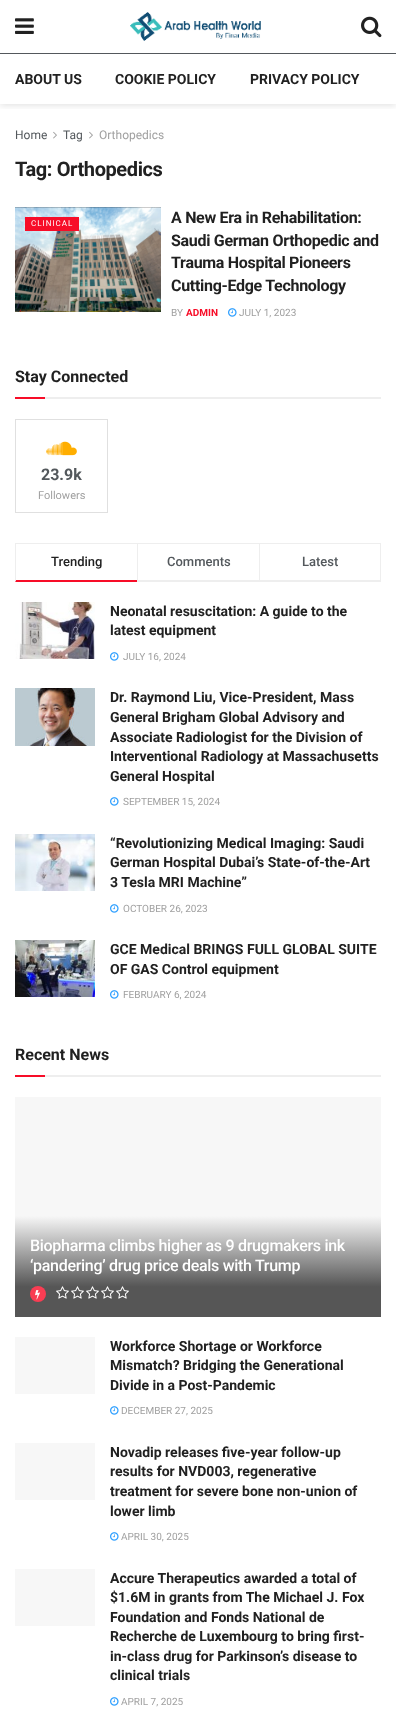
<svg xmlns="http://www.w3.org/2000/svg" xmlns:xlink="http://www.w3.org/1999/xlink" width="396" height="1709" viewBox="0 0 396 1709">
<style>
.cls-1{font:bold 14px Roboto;fill:#212121}
.cls-2{font:12px Roboto;fill:#53585c}
.cls-3{font:12px Roboto;fill:#a0a0a0}
.cls-4{font:bold 20px Roboto;letter-spacing:-0.4px;fill:#212121}
.cls-5{font:8px Roboto;letter-spacing:1px;fill:#ffffff}
.cls-6{font:bold 16px Roboto;letter-spacing:-0.3px;fill:#212121}
.cls-7{font:10px Roboto;fill:#a0a0a0}
.cls-8{font:bold 10px Roboto;fill:#f70d28}
.cls-9{font:bold 16px Roboto;fill:#212121}
.cls-10{font:bold 16px Roboto;fill:#53585c}
.cls-11{font:11px Roboto;fill:#a0a0a0}
.cls-12{font:500 13px Roboto;fill:#212121}
.cls-13{font:500 13px Roboto;fill:#53585c}
.cls-14{font:500 16px Roboto;letter-spacing:-0.3px;fill:#ffffff}
</style>
<defs>
<clipPath id="clip1"><rect x="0" y="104" width="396" height="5"/></clipPath>
<linearGradient id="g1" gradientUnits="userSpaceOnUse" x1="198" y1="1216" x2="198" y2="1317"><stop offset="0" stop-color="#f7f7f7"/><stop offset="0.7" stop-color="#565656"/></linearGradient>
</defs>
<rect width="100%" height="100%" fill="#ffffff"/>
<g clip-path="url(#clip1)">
<rect fill="#000000" fill-opacity="0.1" filter="blur(3px)" x="0" y="2" width="396" height="104"/>
</g>
<image xlink:href="image0.png" x="15" y="18" width="19" height="16"/>
<image xlink:href="image1.png" x="130" y="12" width="131" height="29"/>
<image xlink:href="image2.png" x="361" y="16" width="21" height="22"/>
<rect fill="#53585c" x="0" y="53" width="396" height="1"/>
<image xlink:href="image3.png" x="53" y="131" width="4" height="8"/>
<image xlink:href="image3.png" x="89" y="131" width="4" height="8"/>
<image xlink:href="image4.png" x="15" y="207" width="146" height="105"/>
<rect fill="#f70d28" x="25" y="217" width="54" height="14"/>
<image xlink:href="image5.png" x="228" y="308" width="9" height="9"/>
<rect fill="#eeeeee" x="45" y="397" width="336" height="2"/>
<rect fill="#f70d28" x="15" y="397" width="30" height="2"/>
<rect fill="none" stroke="#e0e0e0" x="15.5" y="419.5" width="92" height="93"/>
<image xlink:href="image6.png" x="46" y="441" width="31" height="15"/>
<rect fill="#eeeeee" x="15" y="543" width="366" height="1"/>
<path fill="#f70d28" d="M137 582H15L16 580H137Z"/>
<path fill="#eeeeee" d="M15 582V543L16 544V580Z"/>
<rect fill="#eeeeee" x="137" y="580" width="122" height="2"/>
<rect fill="#eeeeee" x="137" y="543" width="1" height="39"/>
<rect fill="#eeeeee" x="380" y="543" width="1" height="39"/>
<rect fill="#eeeeee" x="259" y="580" width="122" height="2"/>
<rect fill="#eeeeee" x="259" y="543" width="1" height="39"/>
<image xlink:href="image7.png" x="15" y="602" width="80" height="57"/>
<image xlink:href="image5.png" x="110" y="652" width="9" height="9"/>
<image xlink:href="image8.png" x="15" y="688" width="80" height="58"/>
<image xlink:href="image5.png" x="110" y="797" width="9" height="9"/>
<image xlink:href="image9.png" x="15" y="834" width="80" height="57"/>
<image xlink:href="image5.png" x="110" y="904" width="9" height="9"/>
<image xlink:href="image10.png" x="15" y="940" width="80" height="57"/>
<image xlink:href="image5.png" x="110" y="990" width="9" height="9"/>
<rect fill="#eeeeee" x="45" y="1075" width="336" height="2"/>
<rect fill="#f70d28" x="15" y="1075" width="30" height="2"/>
<rect fill="#f7f7f7" x="15" y="1097" width="366" height="119"/>
<rect fill="url(#g1)" x="15" y="1216" width="366" height="101"/>
<circle fill="#f93d53" cx="38" cy="1294" r="8"/>
<image xlink:href="image11.png" x="35" y="1290" width="5" height="10"/>
<image xlink:href="image12.png" x="56" y="1286" width="13" height="13"/>
<image xlink:href="image12.png" x="71" y="1286" width="13" height="13"/>
<image xlink:href="image12.png" x="86" y="1286" width="13" height="13"/>
<image xlink:href="image12.png" x="101" y="1286" width="13" height="13"/>
<image xlink:href="image12.png" x="116" y="1286" width="13" height="13"/>
<rect fill="#f7f7f7" x="15" y="1337" width="80" height="57"/>
<image xlink:href="image5.png" x="110" y="1406" width="9" height="9"/>
<rect fill="#f7f7f7" x="15" y="1443" width="80" height="57"/>
<image xlink:href="image5.png" x="110" y="1532" width="9" height="9"/>
<rect fill="#f7f7f7" x="15" y="1569" width="80" height="57"/>
<image xlink:href="image5.png" x="110" y="1697" width="9" height="9"/>
<text class="cls-1" x="15" y="84">ABOUT US</text>
<text class="cls-1" x="115" y="84">COOKIE POLICY</text>
<text class="cls-1" x="250" y="84">PRIVACY POLICY</text>
<text class="cls-2" x="15" y="139">Home</text>
<text class="cls-2" x="63" y="139">Tag</text>
<text class="cls-3" x="99" y="139">Orthopedics</text>
<text class="cls-4" x="15" y="176">Tag: Orthopedics</text>
<text class="cls-5" x="31" y="226">CLINICAL</text>
<text class="cls-6"><tspan x="171" y="223">A New Era in Rehabilitation:</tspan><tspan x="171" y="246">Saudi German Orthopedic and</tspan><tspan x="171" y="268">Trauma Hospital Pioneers</tspan><tspan x="171" y="291">Cutting-Edge Technology</tspan></text>
<text class="cls-7" x="171" y="316">BY</text>
<text class="cls-8" x="186" y="316">ADMIN</text>
<text class="cls-7" x="239" y="316">JULY 1, 2023</text>
<text class="cls-9" x="15" y="382">Stay Connected</text>
<text class="cls-10" x="41" y="480">23.9k</text>
<text class="cls-11" x="38" y="499">Followers</text>
<text class="cls-12" x="51" y="566">Trending</text>
<text class="cls-13" x="167" y="566">Comments</text>
<text class="cls-13" x="302" y="566">Latest</text>
<text class="cls-1"><tspan x="110" y="616">Neonatal resuscitation: A guide to the</tspan><tspan x="110" y="635">latest equipment</tspan></text>
<text class="cls-7" x="123" y="660">JULY 16, 2024</text>
<text class="cls-1"><tspan x="110" y="702">Dr. Raymond Liu, Vice-President, Mass</tspan><tspan x="110" y="722">General Brigham Global Advisory and</tspan><tspan x="110" y="742">Associate Radiologist for the Division of</tspan><tspan x="110" y="761">Interventional Radiology at Massachusetts</tspan><tspan x="110" y="781">General Hospital</tspan></text>
<text class="cls-7" x="123" y="805">SEPTEMBER 15, 2024</text>
<text class="cls-1"><tspan x="110" y="848">“Revolutionizing Medical Imaging: Saudi</tspan><tspan x="110" y="867">German Hospital Dubai’s State-of-the-Art</tspan><tspan x="110" y="887">3 Tesla MRI Machine”</tspan></text>
<text class="cls-7" x="123" y="912">OCTOBER 26, 2023</text>
<text class="cls-1"><tspan x="110" y="954">GCE Medical BRINGS FULL GLOBAL SUITE</tspan><tspan x="110" y="974">OF GAS Control equipment</tspan></text>
<text class="cls-7" x="123" y="998">FEBRUARY 6, 2024</text>
<text class="cls-9" x="15" y="1060">Recent News</text>
<text class="cls-14"><tspan x="30" y="1251">Biopharma climbs higher as 9 drugmakers ink</tspan><tspan x="30" y="1271">‘pandering’ drug price deals with Trump</tspan></text>
<text class="cls-1"><tspan x="110" y="1351">Workforce Shortage or Workforce</tspan><tspan x="110" y="1370">Mismatch? Bridging the Generational</tspan><tspan x="110" y="1390">Divide in a Post-Pandemic</tspan></text>
<text class="cls-7" x="121" y="1414">DECEMBER 27, 2025</text>
<text class="cls-1"><tspan x="110" y="1457">Novadip releases five-year follow-up</tspan><tspan x="110" y="1476">results for NVD003, regenerative</tspan><tspan x="110" y="1496">treatment for severe bone non-union of</tspan><tspan x="110" y="1516">lower limb</tspan></text>
<text class="cls-7" x="121" y="1540">APRIL 30, 2025</text>
<text class="cls-1"><tspan x="110" y="1583">Accure Therapeutics awarded a total of</tspan><tspan x="110" y="1602">$1.6M in grants from The Michael J. Fox</tspan><tspan x="110" y="1622">Foundation and Fonds National de</tspan><tspan x="110" y="1641">Recherche de Luxembourg to bring first-</tspan><tspan x="110" y="1661">in-class drug for Parkinson’s disease to</tspan><tspan x="110" y="1680">clinical trials</tspan></text>
<text class="cls-7" x="121" y="1705">APRIL 7, 2025</text>
</svg>
